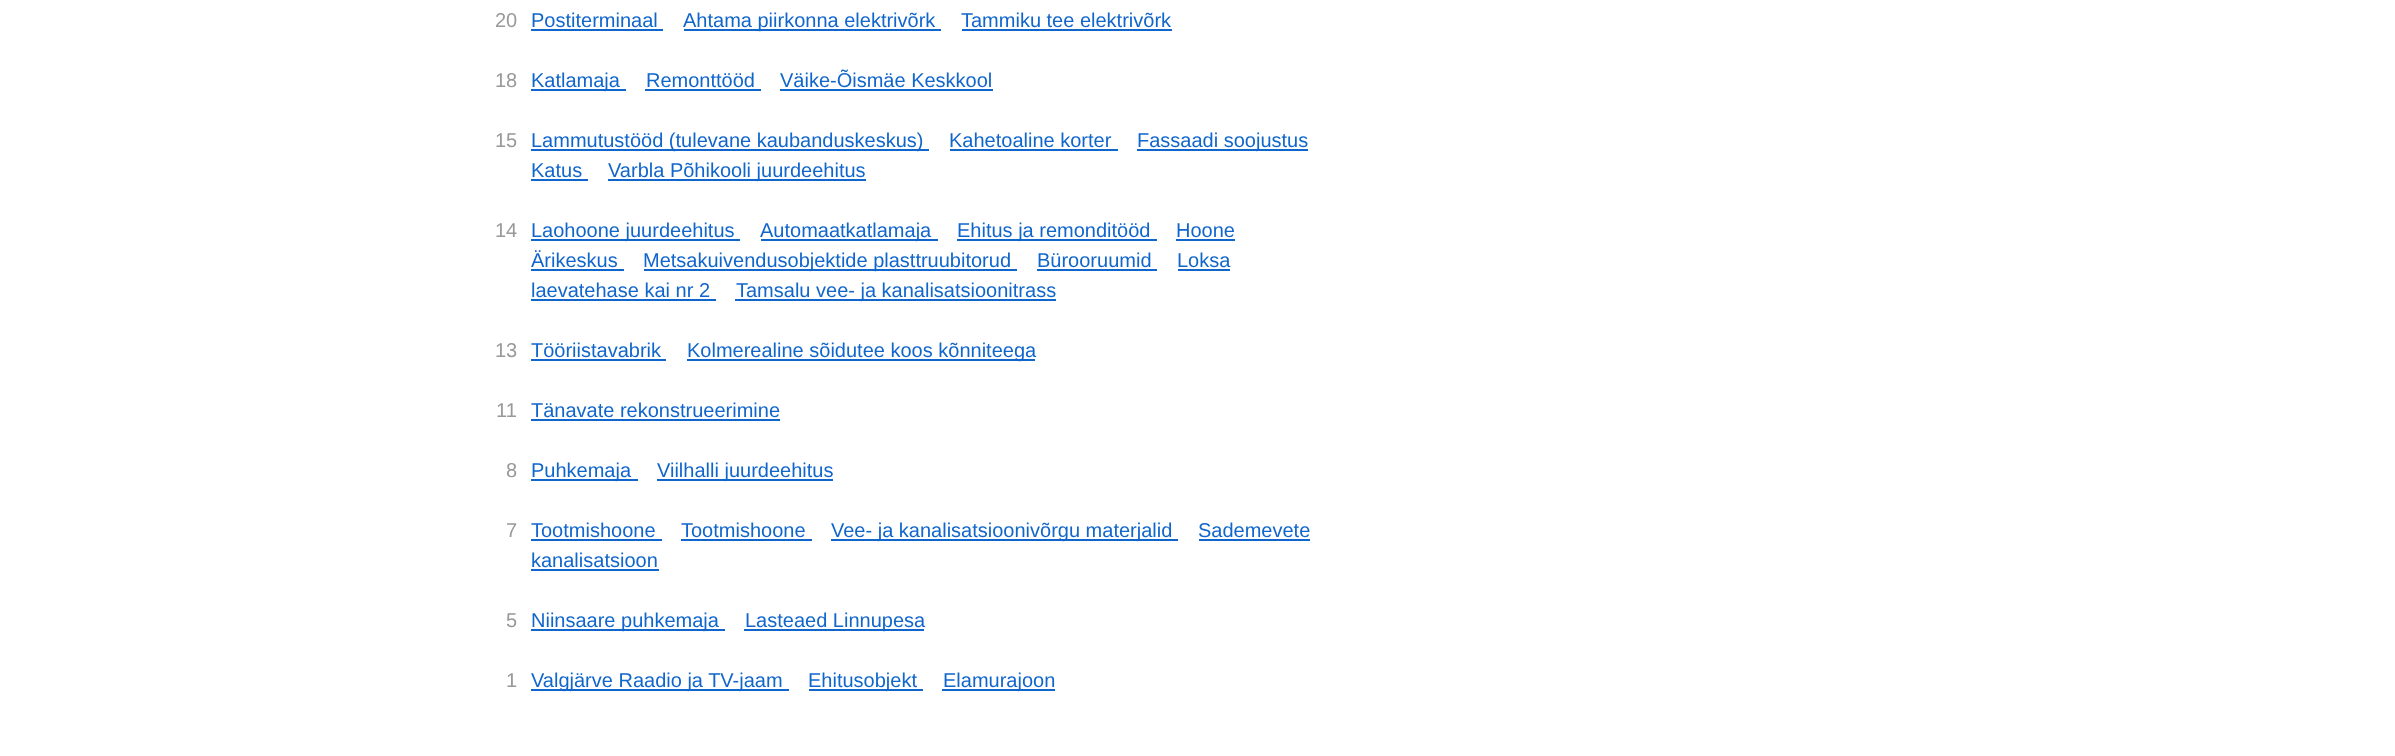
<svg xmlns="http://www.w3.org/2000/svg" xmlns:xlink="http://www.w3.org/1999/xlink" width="2395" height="756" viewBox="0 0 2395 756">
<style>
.cls-1{font:20px Liberation Sans;fill:#999999}
.cls-2{font:20px Liberation Sans;fill:#1166cc}
</style>
<rect width="100%" height="100%" fill="#ffffff"/>
<rect fill="#1166cc" x="531" y="29" width="132" height="2"/>
<rect fill="#1166cc" x="684" y="29" width="257" height="2"/>
<rect fill="#1166cc" x="962" y="29" width="210" height="2"/>
<rect fill="#1166cc" x="531" y="89" width="95" height="2"/>
<rect fill="#1166cc" x="645" y="89" width="116" height="2"/>
<rect fill="#1166cc" x="780" y="89" width="213" height="2"/>
<rect fill="#1166cc" x="531" y="149" width="398" height="2"/>
<rect fill="#1166cc" x="950" y="149" width="168" height="2"/>
<rect fill="#1166cc" x="1137" y="149" width="171" height="2"/>
<rect fill="#1166cc" x="531" y="179" width="57" height="2"/>
<rect fill="#1166cc" x="608" y="179" width="258" height="2"/>
<rect fill="#1166cc" x="531" y="239" width="209" height="2"/>
<rect fill="#1166cc" x="761" y="239" width="177" height="2"/>
<rect fill="#1166cc" x="957" y="239" width="200" height="2"/>
<rect fill="#1166cc" x="1176" y="239" width="59" height="2"/>
<rect fill="#1166cc" x="531" y="269" width="93" height="2"/>
<rect fill="#1166cc" x="644" y="269" width="373" height="2"/>
<rect fill="#1166cc" x="1037" y="269" width="120" height="2"/>
<rect fill="#1166cc" x="1178" y="269" width="52" height="2"/>
<rect fill="#1166cc" x="531" y="299" width="185" height="2"/>
<rect fill="#1166cc" x="735" y="299" width="321" height="2"/>
<rect fill="#1166cc" x="531" y="359" width="135" height="2"/>
<rect fill="#1166cc" x="687" y="359" width="348" height="2"/>
<rect fill="#1166cc" x="531" y="419" width="249" height="2"/>
<rect fill="#1166cc" x="531" y="479" width="107" height="2"/>
<rect fill="#1166cc" x="657" y="479" width="176" height="2"/>
<rect fill="#1166cc" x="531" y="539" width="131" height="2"/>
<rect fill="#1166cc" x="681" y="539" width="131" height="2"/>
<rect fill="#1166cc" x="831" y="539" width="347" height="2"/>
<rect fill="#1166cc" x="1199" y="539" width="111" height="2"/>
<rect fill="#1166cc" x="531" y="569" width="128" height="2"/>
<rect fill="#1166cc" x="531" y="629" width="194" height="2"/>
<rect fill="#1166cc" x="744" y="629" width="180" height="2"/>
<rect fill="#1166cc" x="531" y="689" width="258" height="2"/>
<rect fill="#1166cc" x="809" y="689" width="114" height="2"/>
<rect fill="#1166cc" x="942" y="689" width="113" height="2"/>
<text class="cls-1" x="495" y="27">20</text>
<text class="cls-2" x="531" y="27">Postiterminaal</text>
<text class="cls-2" x="683" y="27">Ahtama piirkonna elektrivõrk</text>
<text class="cls-2" x="961" y="27">Tammiku tee elektrivõrk</text>
<text class="cls-1" x="495" y="87">18</text>
<text class="cls-2" x="531" y="87">Katlamaja</text>
<text class="cls-2" x="646" y="87">Remonttööd</text>
<text class="cls-2" x="780" y="87">Väike-Õismäe Keskkool</text>
<text class="cls-1" x="495" y="147">15</text>
<text class="cls-2" x="531" y="147">Lammutustööd (tulevane kaubanduskeskus)</text>
<text class="cls-2" x="949" y="147">Kahetoaline korter</text>
<text class="cls-2" x="1137" y="147">Fassaadi soojustus</text>
<text class="cls-2" x="531" y="177">Katus</text>
<text class="cls-2" x="608" y="177">Varbla Põhikooli juurdeehitus</text>
<text class="cls-1" x="495" y="237">14</text>
<text class="cls-2" x="531" y="237">Laohoone juurdeehitus</text>
<text class="cls-2" x="760" y="237">Automaatkatlamaja</text>
<text class="cls-2" x="957" y="237">Ehitus ja remonditööd</text>
<text class="cls-2" x="1176" y="237">Hoone</text>
<text class="cls-2" x="531" y="267">Ärikeskus</text>
<text class="cls-2" x="643" y="267">Metsakuivendusobjektide plasttruubitorud</text>
<text class="cls-2" x="1037" y="267">Bürooruumid</text>
<text class="cls-2" x="1177" y="267">Loksa</text>
<text class="cls-2" x="531" y="297">laevatehase kai nr 2</text>
<text class="cls-2" x="736" y="297">Tamsalu vee- ja kanalisatsioonitrass</text>
<text class="cls-1" x="495" y="357">13</text>
<text class="cls-2" x="531" y="357">Tööriistavabrik</text>
<text class="cls-2" x="687" y="357">Kolmerealine sõidutee koos kõnniteega</text>
<text class="cls-1" x="496" y="417">11</text>
<text class="cls-2" x="531" y="417">Tänavate rekonstrueerimine</text>
<text class="cls-1" x="506" y="477">8</text>
<text class="cls-2" x="531" y="477">Puhkemaja</text>
<text class="cls-2" x="657" y="477">Viilhalli juurdeehitus</text>
<text class="cls-1" x="506" y="537">7</text>
<text class="cls-2" x="531" y="537">Tootmishoone</text>
<text class="cls-2" x="681" y="537">Tootmishoone</text>
<text class="cls-2" x="831" y="537">Vee- ja kanalisatsioonivõrgu materjalid</text>
<text class="cls-2" x="1198" y="537">Sademevete</text>
<text class="cls-2" x="531" y="567">kanalisatsioon</text>
<text class="cls-1" x="506" y="627">5</text>
<text class="cls-2" x="531" y="627">Niinsaare puhkemaja</text>
<text class="cls-2" x="745" y="627">Lasteaed Linnupesa</text>
<text class="cls-1" x="506" y="687">1</text>
<text class="cls-2" x="531" y="687">Valgjärve Raadio ja TV-jaam</text>
<text class="cls-2" x="808" y="687">Ehitusobjekt</text>
<text class="cls-2" x="943" y="687">Elamurajoon</text>
</svg>
